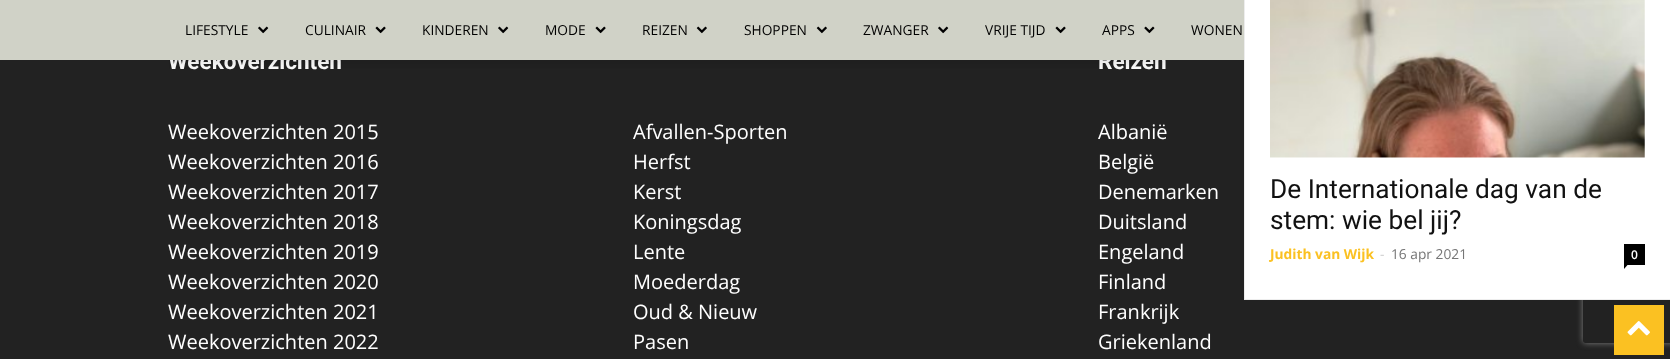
<svg xmlns="http://www.w3.org/2000/svg" xmlns:xlink="http://www.w3.org/1999/xlink" width="1670" height="359" viewBox="0 0 1670 359">
<style>
.cls-1{font:bold 22.5px Roboto;fill:#ffffff}
.cls-2{font:20px Open Sans;fill:#ffffff}
.cls-3{font:13.75px Open Sans;fill:#000000}
.cls-4{font:26.25px Roboto;fill:#111111}
.cls-5{font:bold 13.75px Open Sans;fill:#fbc122}
.cls-6{font:13.75px Open Sans;fill:#cccccc}
.cls-7{font:13.75px Open Sans;fill:#767676}
.cls-8{font:600 12px Open Sans;fill:#ffffff}
</style>
<defs>
<clipPath id="clip1"><path d="M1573 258H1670V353H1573ZM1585.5 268H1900.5C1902 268 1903 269 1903 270.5V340.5C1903 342 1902 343 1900.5 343H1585.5C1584 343 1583 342 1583 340.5V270.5C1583 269 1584 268 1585.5 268Z" clip-rule="evenodd"/></clipPath>
</defs>
<rect width="100%" height="100%" fill="#222222"/>
<g clip-path="url(#clip1)">
<rect fill="#808080" filter="blur(3px)" x="1583" y="268" width="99" height="75" rx="2.5"/>
</g>
<rect fill="#ffffff" x="1245" y="0" width="425" height="299"/>
<rect fill="#ededed" x="1244" y="299" width="426" height="1"/>
<rect fill="#ededed" x="1244" y="0" width="1" height="300"/>
<image xlink:href="image5.png" x="1270" y="0" width="375" height="158"/>
<rect fill="#000000" x="1624" y="244" width="21" height="21"/>
<path fill="#000000" d="M1624 265H1627.5L1624 269Z"/>
<rect fill="#fbc122" x="1614" y="305" width="50" height="50"/>
<image xlink:href="image6.png" x="1627" y="321" width="23" height="15"/>
<text class="cls-1" x="168" y="69">Weekoverzichten</text>
<text class="cls-2"><tspan x="168" y="139">Weekoverzichten 2015</tspan><tspan x="168" y="169">Weekoverzichten 2016</tspan><tspan x="168" y="199">Weekoverzichten 2017</tspan><tspan x="168" y="229">Weekoverzichten 2018</tspan><tspan x="168" y="259">Weekoverzichten 2019</tspan><tspan x="168" y="289">Weekoverzichten 2020</tspan><tspan x="168" y="319">Weekoverzichten 2021</tspan><tspan x="168" y="349">Weekoverzichten 2022</tspan></text>
<text class="cls-2"><tspan x="633" y="139">Afvallen-Sporten</tspan><tspan x="633" y="169">Herfst</tspan><tspan x="633" y="199">Kerst</tspan><tspan x="633" y="229">Koningsdag</tspan><tspan x="633" y="259">Lente</tspan><tspan x="633" y="289">Moederdag</tspan><tspan x="633" y="319">Oud &amp; Nieuw</tspan><tspan x="633" y="349">Pasen</tspan></text>
<text class="cls-1" x="1098" y="69">Reizen</text>
<rect fill="#d0d2c7" x="0" y="0" width="1244" height="60"/>
<text class="cls-3" x="1191" y="35">WONEN</text>
<image xlink:href="image3.png" x="1144" y="26" width="11" height="8"/>
<text class="cls-3" x="1102" y="35">APPS</text>
<image xlink:href="image1.png" x="1055" y="26" width="11" height="8"/>
<text class="cls-3" x="985" y="35">VRIJE TIJD</text>
<image xlink:href="image0.png" x="938" y="26" width="11" height="8"/>
<text class="cls-3" x="863" y="35">ZWANGER</text>
<image xlink:href="image2.png" x="816" y="26" width="11" height="8"/>
<text class="cls-3" x="744" y="35">SHOPPEN</text>
<image xlink:href="image2.png" x="696" y="26" width="11" height="8"/>
<text class="cls-3" x="642" y="35">REIZEN</text>
<image xlink:href="image1.png" x="595" y="26" width="11" height="8"/>
<text class="cls-3" x="545" y="35">MODE</text>
<image xlink:href="image0.png" x="498" y="26" width="11" height="8"/>
<text class="cls-3" x="422" y="35">KINDEREN</text>
<image xlink:href="image1.png" x="375" y="26" width="11" height="8"/>
<text class="cls-3" x="305" y="35">CULINAIR</text>
<image xlink:href="image0.png" x="258" y="26" width="11" height="8"/>
<text class="cls-3" x="185" y="35">LIFESTYLE</text>
<image xlink:href="image4.png" x="169" y="60" width="996" height="9"/>
<text class="cls-2"><tspan x="1098" y="139">Albanië</tspan><tspan x="1098" y="169">België</tspan><tspan x="1098" y="199">Denemarken</tspan><tspan x="1098" y="229">Duitsland</tspan><tspan x="1098" y="259">Engeland</tspan><tspan x="1098" y="289">Finland</tspan><tspan x="1098" y="319">Frankrijk</tspan><tspan x="1098" y="349">Griekenland</tspan></text>
<text class="cls-4"><tspan x="1270" y="198">De Internationale dag van de</tspan><tspan x="1270" y="229">stem: wie bel jij?</tspan></text>
<text class="cls-5" x="1270" y="259">Judith van Wijk</text>
<text class="cls-6" x="1380" y="259">-</text>
<text class="cls-7" x="1391" y="259">16 apr 2021</text>
<text class="cls-8" x="1631" y="259">0</text>
</svg>
